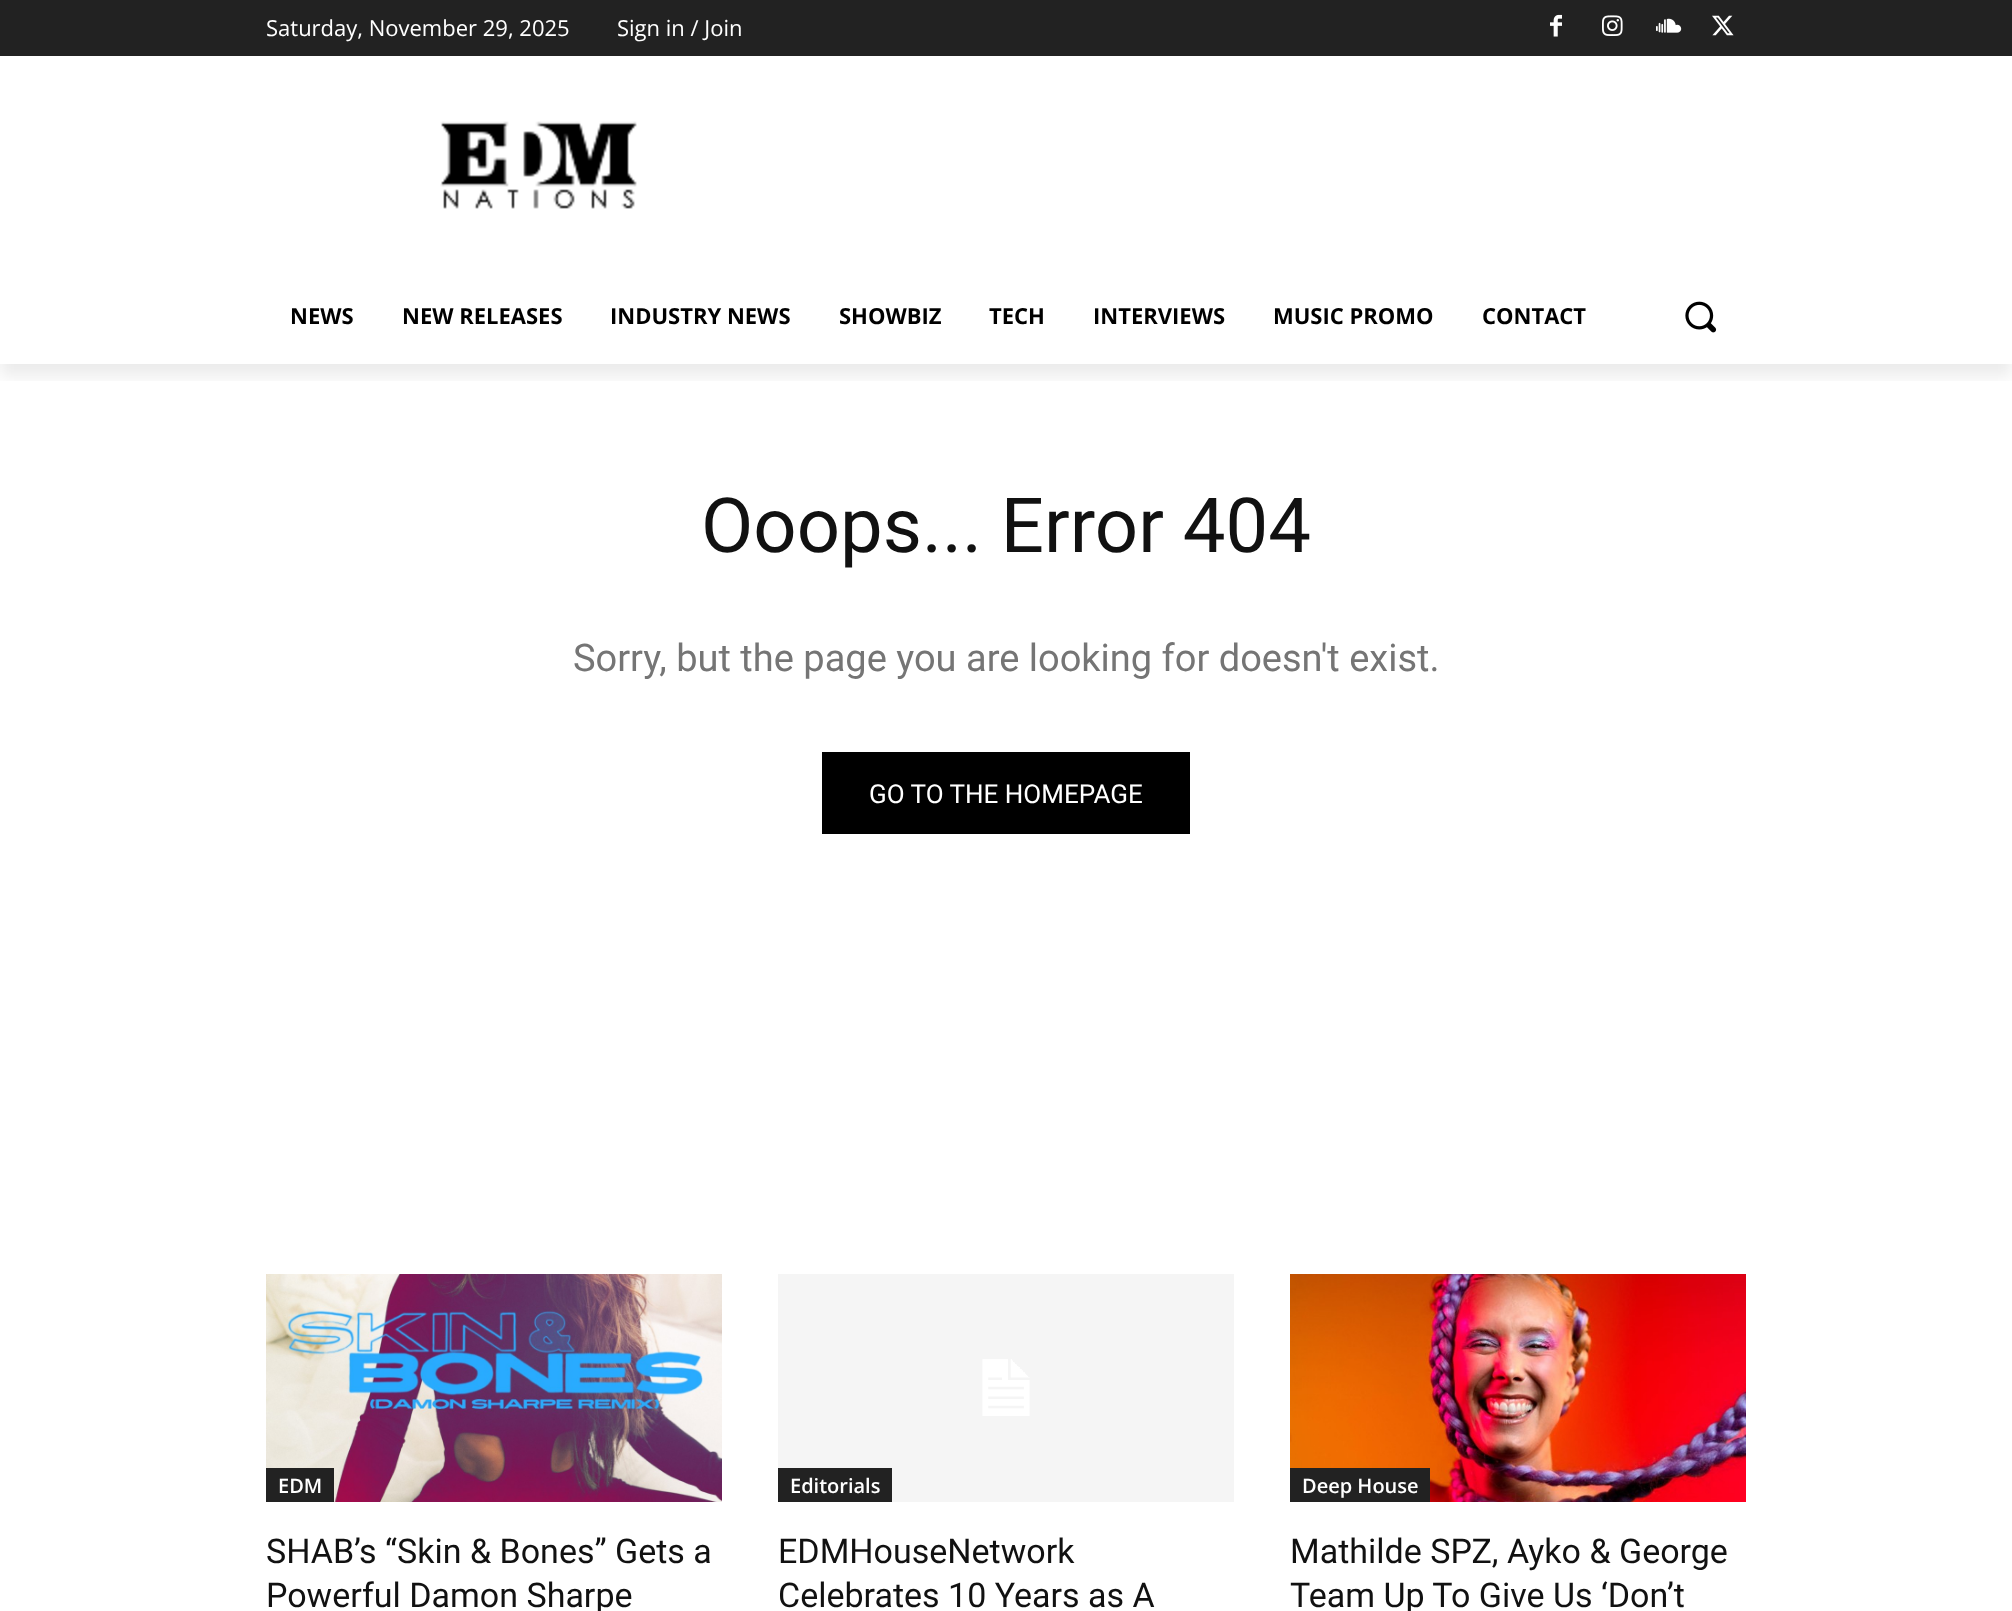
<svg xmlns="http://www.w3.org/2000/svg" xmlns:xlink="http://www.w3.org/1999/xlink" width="2012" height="1611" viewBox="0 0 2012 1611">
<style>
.cls-1{font:22px Open Sans;fill:#ffffff}
.cls-2{font:bold 22px Open Sans;fill:#000000}
.cls-3{font:76px Roboto;fill:#111111}
.cls-4{font:38px Roboto;fill:#757575}
.cls-5{font:26px Roboto;fill:#ffffff}
.cls-6{font:600 20px Open Sans;fill:#ffffff}
.cls-7{font:34px Roboto;fill:#111111}
</style>
<defs>
<clipPath id="clip1"><rect x="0" y="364" width="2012" height="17"/></clipPath>
</defs>
<rect width="100%" height="100%" fill="#ffffff"/>
<rect fill="#222222" x="0" y="0" width="2012" height="56"/>
<image xlink:href="image0.png" x="1550" y="14" width="12" height="23"/>
<image xlink:href="image1.png" x="1602" y="15" width="21" height="21"/>
<image xlink:href="image2.png" x="1656" y="18" width="26" height="15"/>
<image xlink:href="image3.png" x="1712" y="15" width="22" height="21"/>
<image xlink:href="image4.png" x="440" y="121" width="197" height="88"/>
<g clip-path="url(#clip1)">
<rect fill="#000000" fill-opacity="0.08" filter="blur(8px)" x="0" y="12" width="2012" height="364"/>
</g>
<image xlink:href="image5.png" x="1685" y="301" width="32" height="32"/>
<rect fill="#000000" x="822" y="752" width="368" height="82"/>
<image xlink:href="image6.png" x="266" y="1274" width="456" height="228"/>
<rect fill="#222222" x="266" y="1468" width="68" height="34"/>
<image xlink:href="image7.png" x="778" y="1274" width="456" height="228"/>
<rect fill="#222222" x="778" y="1468" width="114" height="34"/>
<image xlink:href="image8.png" x="1290" y="1274" width="456" height="228"/>
<rect fill="#222222" x="1290" y="1468" width="140" height="34"/>
<text class="cls-1" x="266" y="36">Saturday, November 29, 2025</text>
<text class="cls-1" x="617" y="36">Sign in / Join</text>
<text class="cls-2" x="290" y="324">NEWS</text>
<text class="cls-2" x="402" y="324">NEW RELEASES</text>
<text class="cls-2" x="610" y="324">INDUSTRY NEWS</text>
<text class="cls-2" x="839" y="324">SHOWBIZ</text>
<text class="cls-2" x="989" y="324">TECH</text>
<text class="cls-2" x="1093" y="324">INTERVIEWS</text>
<text class="cls-2" x="1273" y="324">MUSIC PROMO</text>
<text class="cls-2" x="1482" y="324">CONTACT</text>
<text class="cls-3" x="701" y="552">Ooops... Error 404</text>
<text class="cls-4" x="573" y="671">Sorry, but the page you are looking for doesn't exist.</text>
<text class="cls-5" x="869" y="803">GO TO THE HOMEPAGE</text>
<text class="cls-6" x="278" y="1493">EDM</text>
<text class="cls-7"><tspan x="266" y="1563">SHAB’s “Skin &amp; Bones” Gets a</tspan><tspan x="266" y="1607">Powerful Damon Sharpe</tspan></text>
<text class="cls-6" x="790" y="1493">Editorials</text>
<text class="cls-7"><tspan x="778" y="1563">EDMHouseNetwork</tspan><tspan x="778" y="1607">Celebrates 10 Years as A</tspan></text>
<text class="cls-6" x="1302" y="1493">Deep House</text>
<text class="cls-7"><tspan x="1290" y="1563">Mathilde SPZ, Ayko &amp; George</tspan><tspan x="1290" y="1607">Team Up To Give Us ‘Don’t</tspan></text>
</svg>
